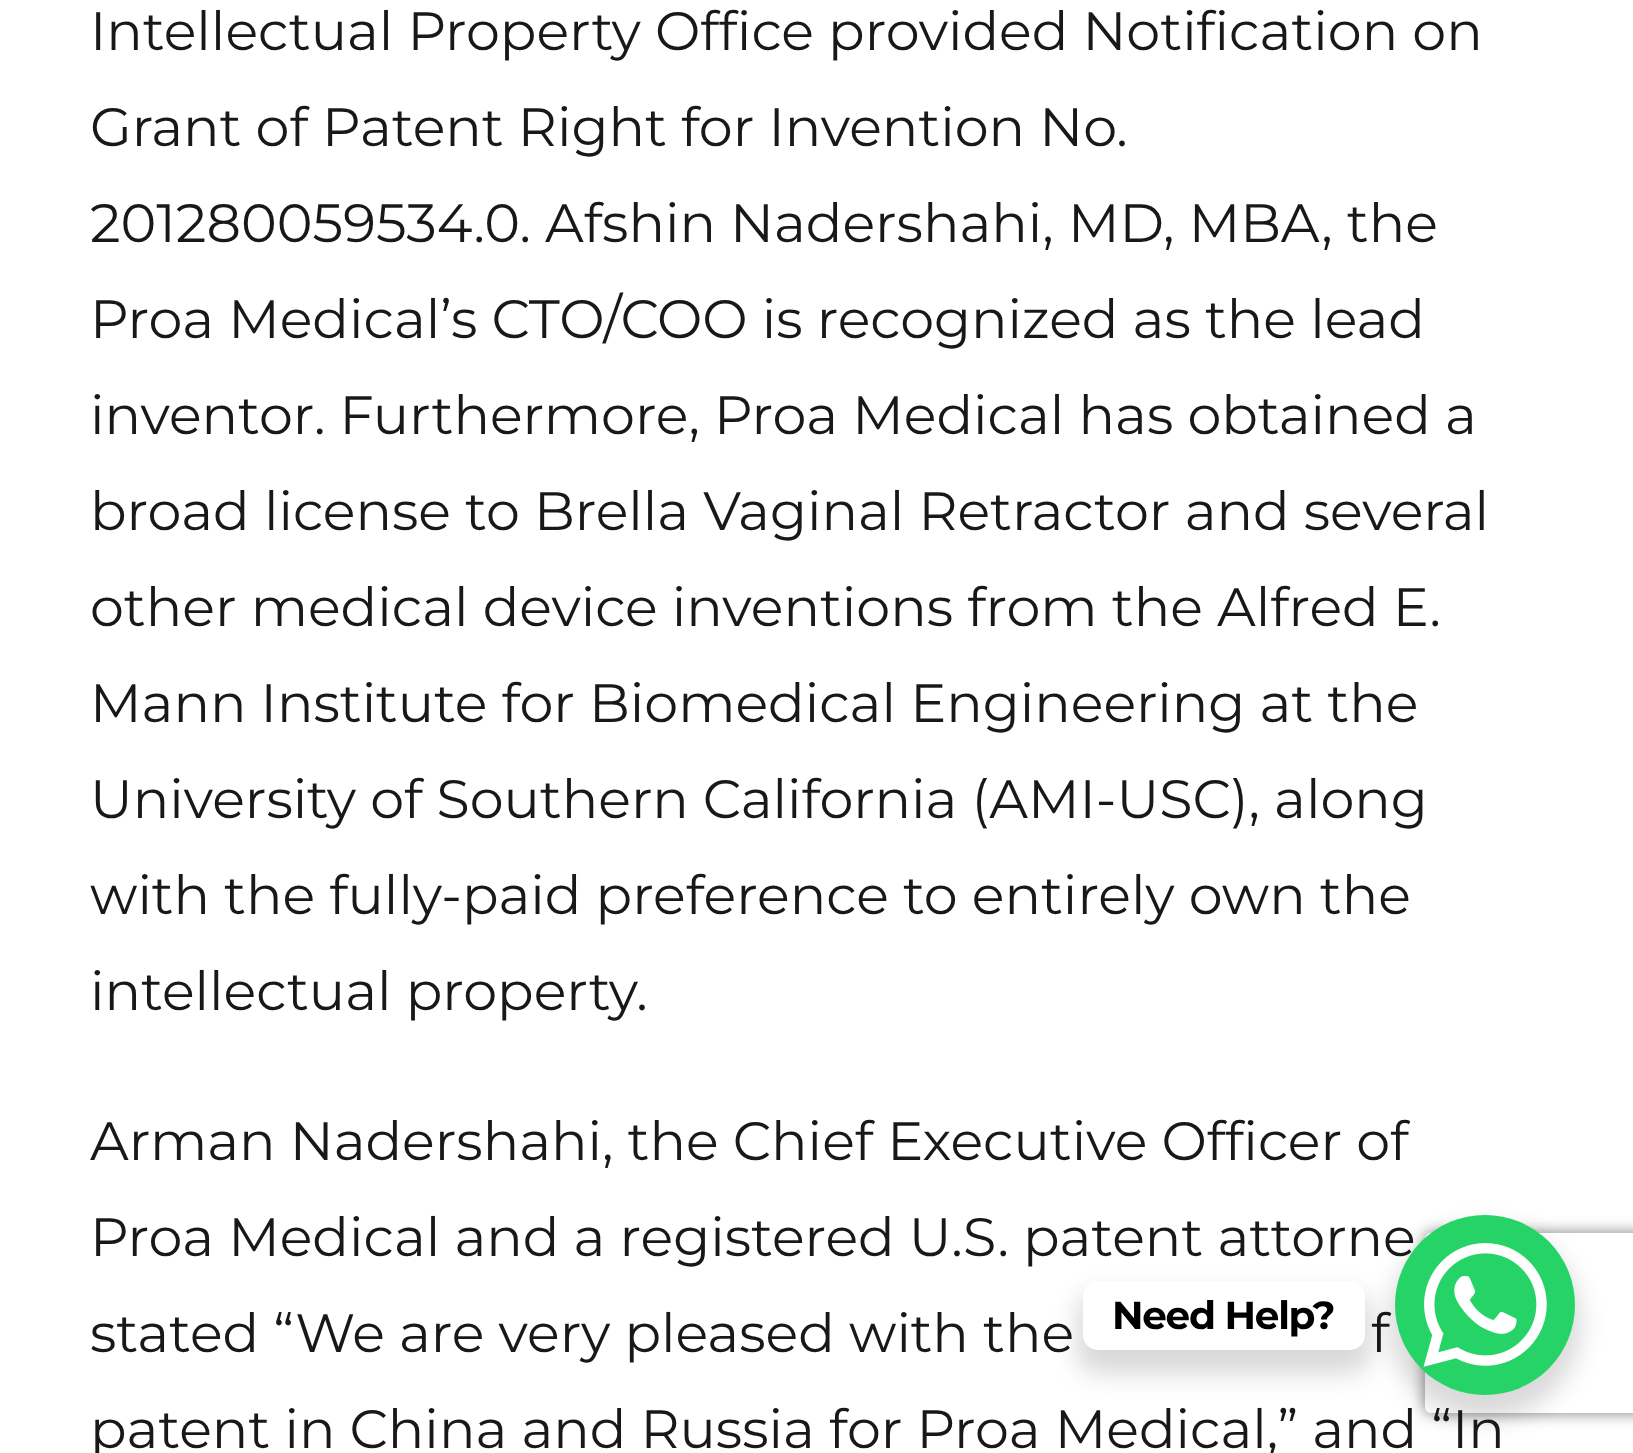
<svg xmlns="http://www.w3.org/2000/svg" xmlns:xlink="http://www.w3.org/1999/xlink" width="1633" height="1453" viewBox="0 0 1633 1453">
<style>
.cls-1{font:54px Montserrat;fill:#181818}
.cls-2{font:bold 39px Montserrat;letter-spacing:-1.25px;fill:#000000}
</style>
<defs>
<clipPath id="clip1"><path d="M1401 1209H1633V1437H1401ZM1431 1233H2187C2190.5 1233 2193 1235.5 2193 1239V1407C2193 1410.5 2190.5 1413 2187 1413H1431C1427.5 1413 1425 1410.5 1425 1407V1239C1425 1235.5 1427.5 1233 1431 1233Z" clip-rule="evenodd"/></clipPath>
</defs>
<rect width="100%" height="100%" fill="#ffffff"/>
<g clip-path="url(#clip1)">
<rect fill="#808080" filter="blur(7.5px)" x="1425" y="1233" width="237" height="180" rx="6"/>
</g>
<rect fill="#000000" fill-opacity="0.15" filter="blur(12px)" x="1389" y="1227" width="192" height="192" rx="96"/>
<text class="cls-1"><tspan x="90" y="50">Intellectual Property Office provided Notification on</tspan><tspan x="90" y="146">Grant of Patent Right for Invention No.</tspan><tspan x="90" y="242">201280059534.0. Afshin Nadershahi, MD, MBA, the</tspan><tspan x="90" y="338">Proa Medical’s CTO/COO is recognized as the lead</tspan><tspan x="90" y="434">inventor. Furthermore, Proa Medical has obtained a</tspan><tspan x="90" y="530">broad license to Brella Vaginal Retractor and several</tspan><tspan x="90" y="626">other medical device inventions from the Alfred E.</tspan><tspan x="90" y="722">Mann Institute for Biomedical Engineering at the</tspan><tspan x="90" y="818">University of Southern California (AMI-USC), along</tspan><tspan x="90" y="914">with the fully-paid preference to entirely own the</tspan><tspan x="90" y="1010">intellectual property.</tspan></text>
<text class="cls-1"><tspan x="90" y="1160">Arman Nadershahi, the Chief Executive Officer of</tspan><tspan x="90" y="1256">Proa Medical and a registered U.S. patent attorne</tspan><tspan x="90" y="1352">stated “We are very pleased with the</tspan></text>
<text class="cls-1" x="1371" y="1352">f</text>
<text class="cls-1" x="90" y="1448">patent in China and Russia for Proa Medical,” and “In</text>
<circle fill="#25d366" cx="1485" cy="1305" r="90"/>
<rect fill="#000000" fill-opacity="0.15" filter="blur(12px)" x="1077" y="1293" width="294" height="81" rx="21"/>
<rect fill="#ffffff" x="1083" y="1281" width="282" height="69" rx="15"/>
<text class="cls-2" x="1112" y="1329">Need Help?</text>
<image xlink:href="image0.png" x="1423" y="1243" width="124" height="124"/>
</svg>
